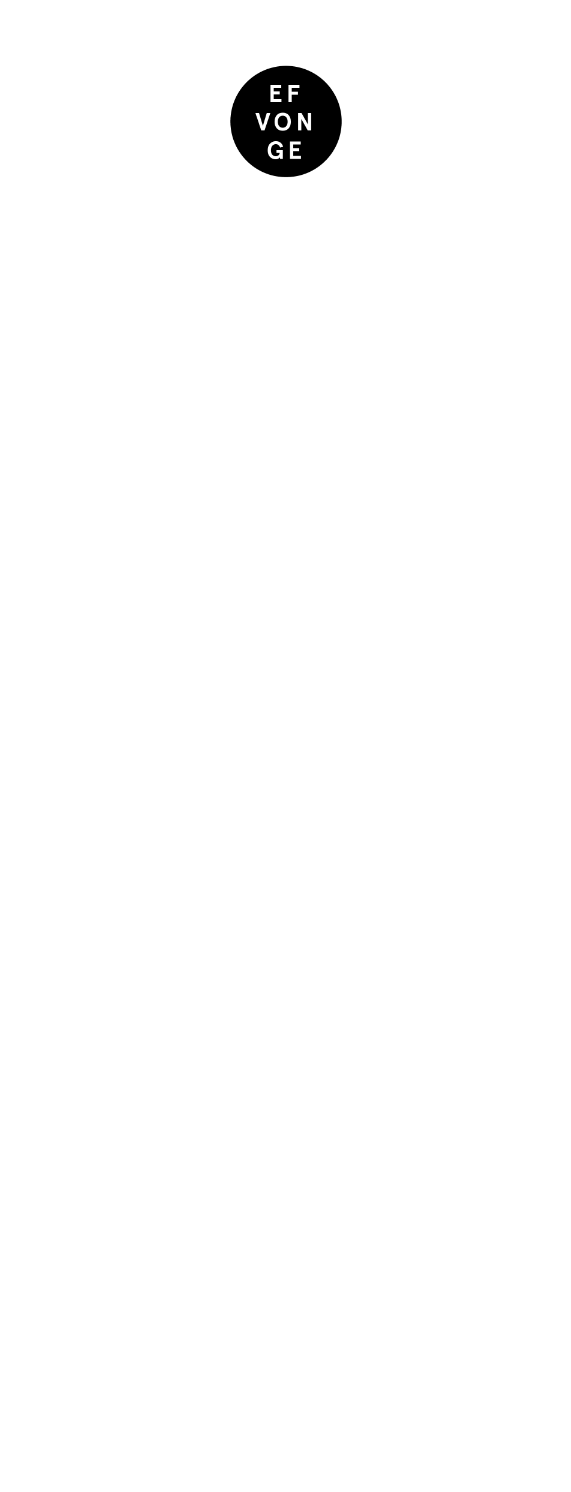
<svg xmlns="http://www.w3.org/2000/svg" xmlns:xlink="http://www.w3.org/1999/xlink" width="571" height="1492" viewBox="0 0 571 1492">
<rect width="100%" height="100%" fill="#ffffff"/>
<image xlink:href="image0.png" x="230" y="65" width="112" height="113"/>
</svg>
